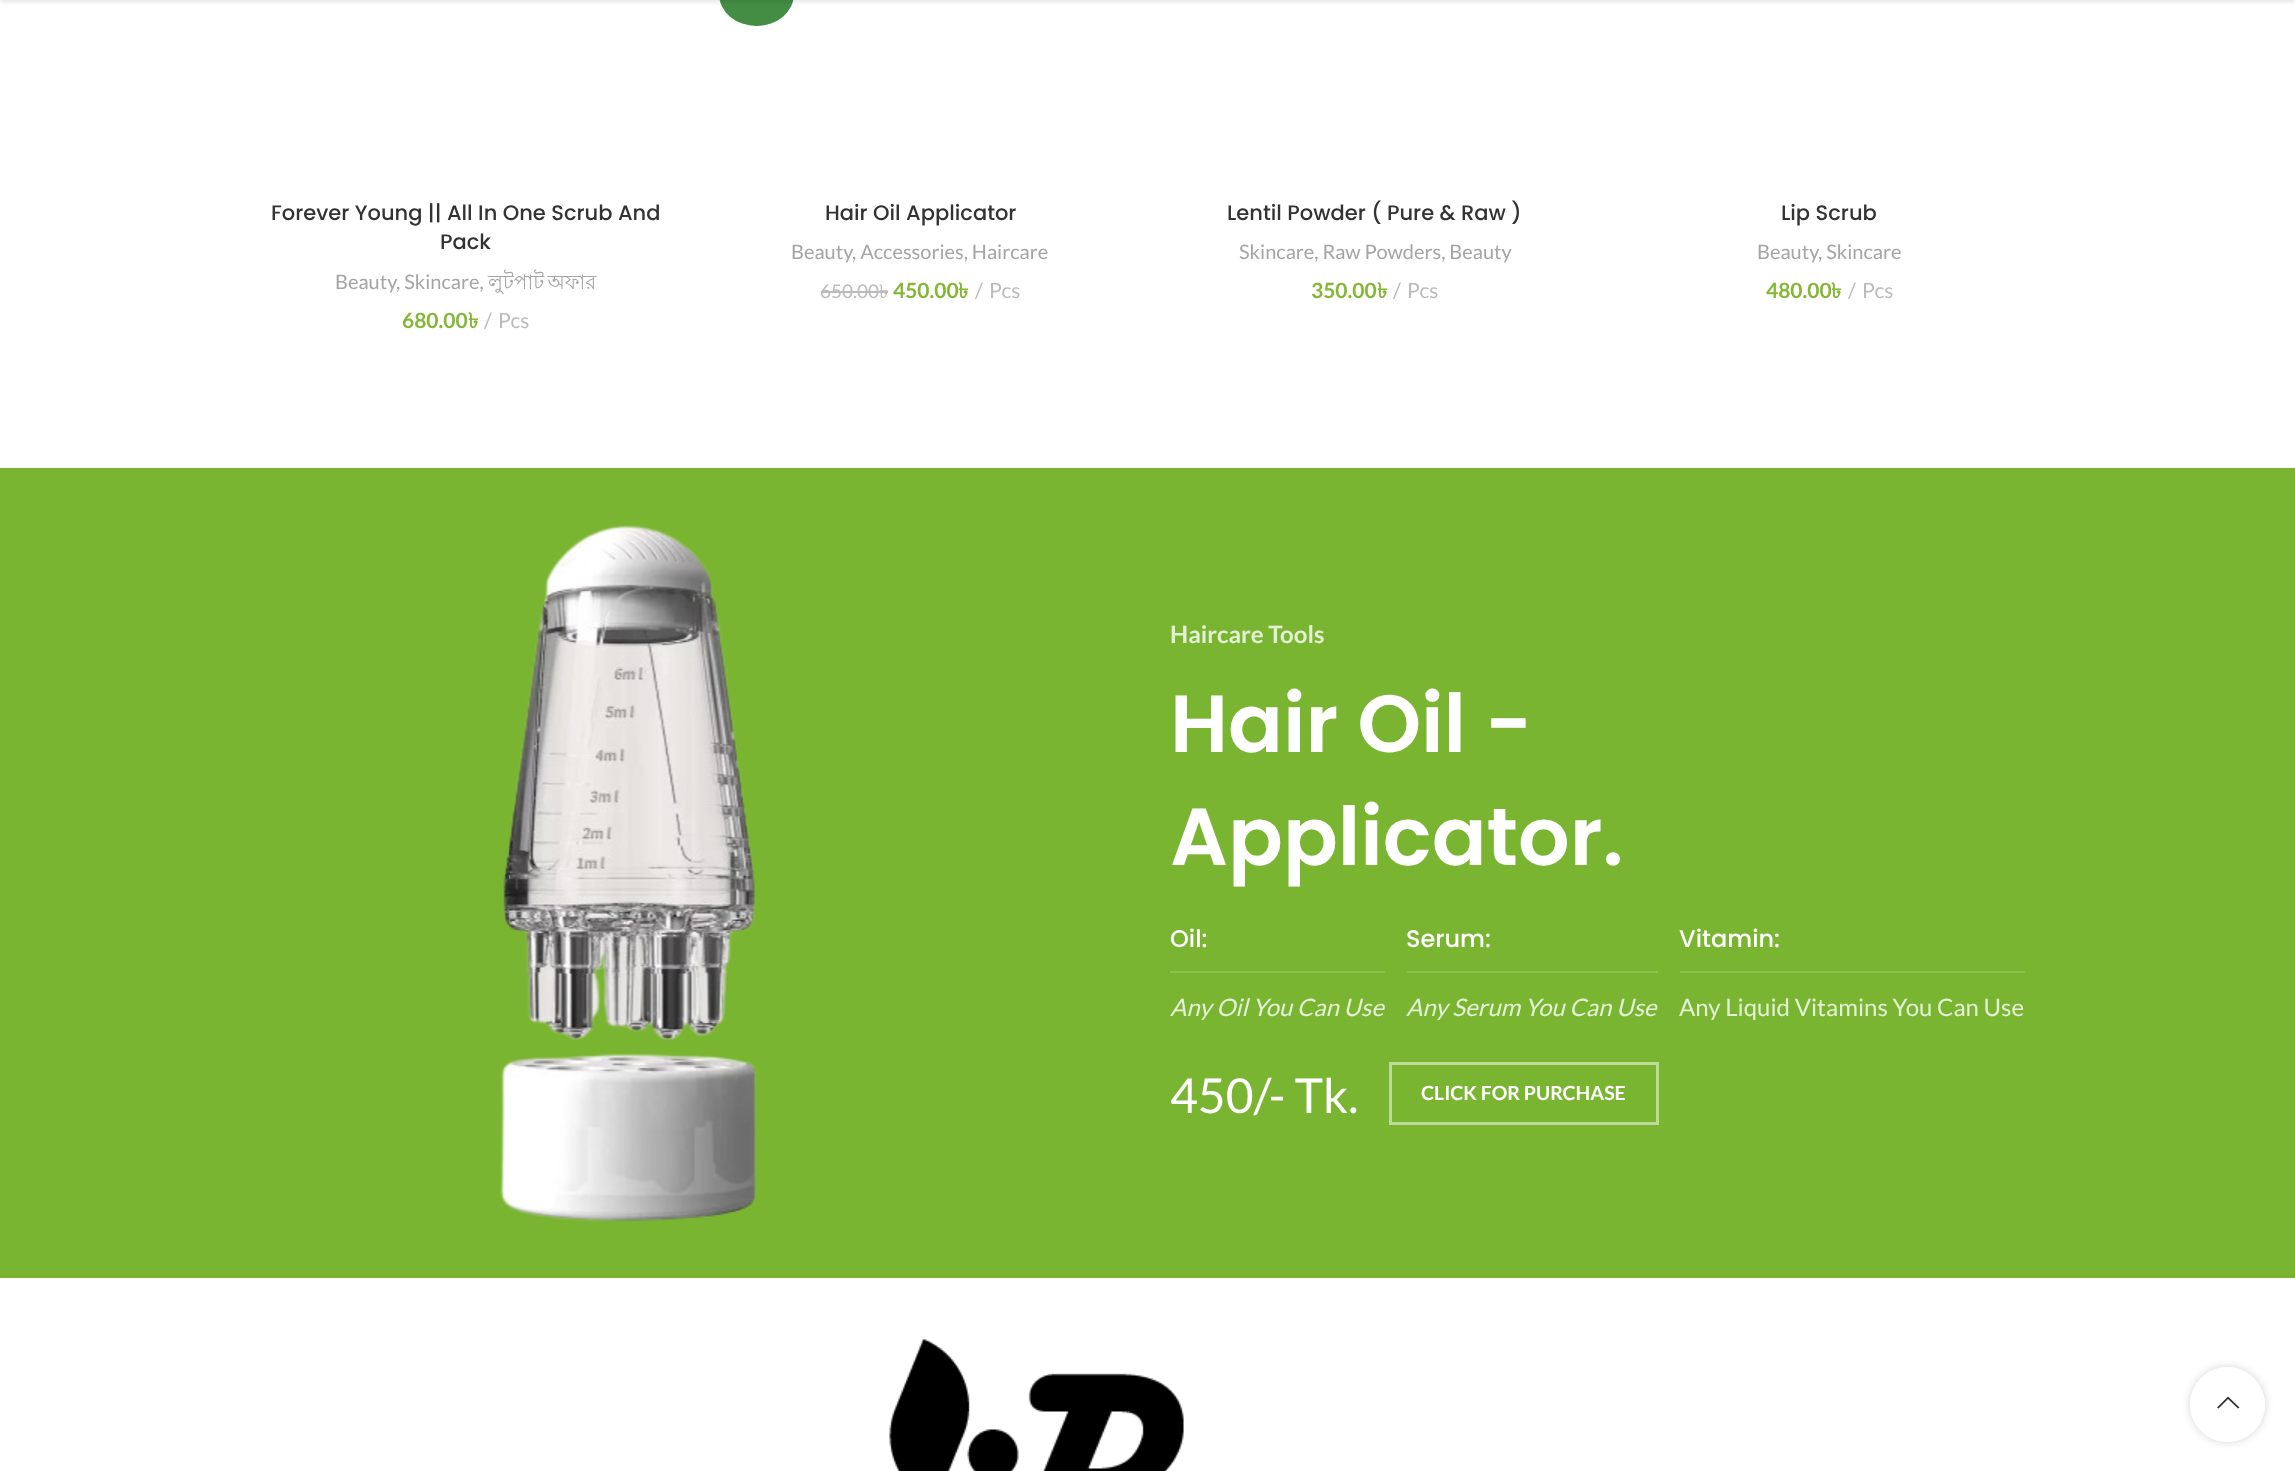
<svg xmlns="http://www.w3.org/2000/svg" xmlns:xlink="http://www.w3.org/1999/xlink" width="2295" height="1471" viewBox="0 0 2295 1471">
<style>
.cls-1{font:500 21px Poppins;fill:#333333}
.cls-2{font:20px Lato;fill:#a5a5a5}
.cls-3{font:20px Lohit Bengali;fill:#a5a5a5}
.cls-4{font:bold 21px Lato;fill:#83b735}
.cls-5{font:bold 21px Lohit Bengali;fill:#83b735}
.cls-6{font:21px Lato;fill:#bbbbbb}
.cls-7{font:19px Lato;fill:#bbbbbb}
.cls-8{font:19px Lohit Bengali;fill:#bbbbbb}
.cls-9{font:bold 24px Lato;fill:#e4f0d6}
.cls-10{font:600 81px Poppins;fill:#ffffff}
.cls-11{font:500 24px Poppins;fill:#ffffff}
.cls-12{font:italic 24px Lato;fill:#e4f0d6}
.cls-13{font:24px Lato;fill:#e4f0d6}
.cls-14{font:48px Lato;fill:#ffffff}
.cls-15{font:bold 19.5px Lato;fill:#ffffff}
</style>
<defs>
<clipPath id="clip1"><path d="M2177 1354H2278V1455H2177ZM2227.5 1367C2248 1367 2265 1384 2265 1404.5C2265 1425 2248 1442 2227.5 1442C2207 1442 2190 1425 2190 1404.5C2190 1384 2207 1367 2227.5 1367Z" clip-rule="evenodd"/></clipPath>
</defs>
<rect width="100%" height="100%" fill="#ffffff"/>
<rect fill="#438e44" x="719" y="-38" width="75" height="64" rx="37.5"/>
<rect fill="#000000" fill-opacity="0.1" filter="blur(2px)" x="0" y="-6" width="2295" height="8"/>
<rect fill="#bbbbbb" x="821" y="291" width="58" height="2"/>
<rect fill="#bbbbbb" x="879" y="291" width="9" height="2"/>
<rect fill="#7ab532" x="0" y="468" width="2295" height="810"/>
<image xlink:href="image0.png" x="500" y="525" width="257" height="697"/>
<rect fill="#8ec051" x="1170" y="971" width="215" height="2"/>
<rect fill="#8ec051" x="1407" y="971" width="251" height="2"/>
<rect fill="#8ec051" x="1680" y="971" width="345" height="2"/>
<rect fill="none" stroke="#bdda99" stroke-width="3" x="1390.5" y="1063.5" width="267" height="60"/>
<image xlink:href="image1.png" x="889" y="1338" width="295" height="133"/>
<g clip-path="url(#clip1)">
<rect fill="#000000" fill-opacity="0.17" filter="blur(4px)" x="2190" y="1367" width="75" height="75" rx="37.5"/>
</g>
<circle fill="#ffffff" fill-opacity="0.9" cx="2227.5" cy="1404.5" r="37.5"/>
<path fill="#333333" d="M2238 1408.5L2239.5 1407.5L2228 1396.5L2217 1407.5L2218.5 1408.5L2228 1399Z"/>
<text class="cls-1" x="271" y="220">Forever Young || All In One Scrub And</text>
<text class="cls-1" x="440" y="249">Pack</text>
<text class="cls-2" x="335" y="289">Beauty, Skincare,</text>
<text class="cls-3" x="488" y="289" word-spacing="-2">লুটপাট অফার</text>
<text class="cls-4" x="402" y="328">680.00</text>
<text class="cls-5" x="468" y="328">৳</text>
<text class="cls-6" x="484" y="328">/</text>
<text class="cls-6" x="498" y="328">Pcs</text>
<text class="cls-1" x="825" y="220">Hair Oil Applicator</text>
<text class="cls-2" x="791" y="259">Beauty, Accessories, Haircare</text>
<text class="cls-7" x="820" y="298">650.00</text>
<text class="cls-8" x="879" y="298">৳</text>
<text class="cls-4" x="893" y="298">450.00</text>
<text class="cls-5" x="958" y="298">৳</text>
<text class="cls-6" x="975" y="298">/</text>
<text class="cls-6" x="989" y="298">Pcs</text>
<text class="cls-1" x="1227" y="220">Lentil Powder ( Pure &amp; Raw )</text>
<text class="cls-2" x="1239" y="259">Skincare, Raw Powders, Beauty</text>
<text class="cls-4" x="1311" y="298">350.00</text>
<text class="cls-5" x="1377" y="298">৳</text>
<text class="cls-6" x="1393" y="298">/</text>
<text class="cls-6" x="1407" y="298">Pcs</text>
<text class="cls-1" x="1781" y="220">Lip Scrub</text>
<text class="cls-2" x="1757" y="259">Beauty, Skincare</text>
<text class="cls-4" x="1766" y="298">480.00</text>
<text class="cls-5" x="1831" y="298">৳</text>
<text class="cls-6" x="1848" y="298">/</text>
<text class="cls-6" x="1862" y="298">Pcs</text>
<text class="cls-9" x="1170" y="643">Haircare Tools</text>
<text class="cls-10"><tspan x="1170" y="752">Hair Oil -</tspan><tspan x="1170" y="865">Applicator.</tspan></text>
<text class="cls-11" x="1170" y="947">Oil:</text>
<text class="cls-12" x="1170" y="1016">Any Oil You Can Use</text>
<text class="cls-11" x="1406" y="947">Serum:</text>
<text class="cls-12" x="1406" y="1016">Any Serum You Can Use</text>
<text class="cls-11" x="1679" y="947">Vitamin:</text>
<text class="cls-13" x="1679" y="1016">Any Liquid Vitamins You Can Use</text>
<text class="cls-14" x="1170" y="1113">450/- Tk.</text>
<text class="cls-15" x="1421" y="1100">CLICK FOR PURCHASE</text>
</svg>
